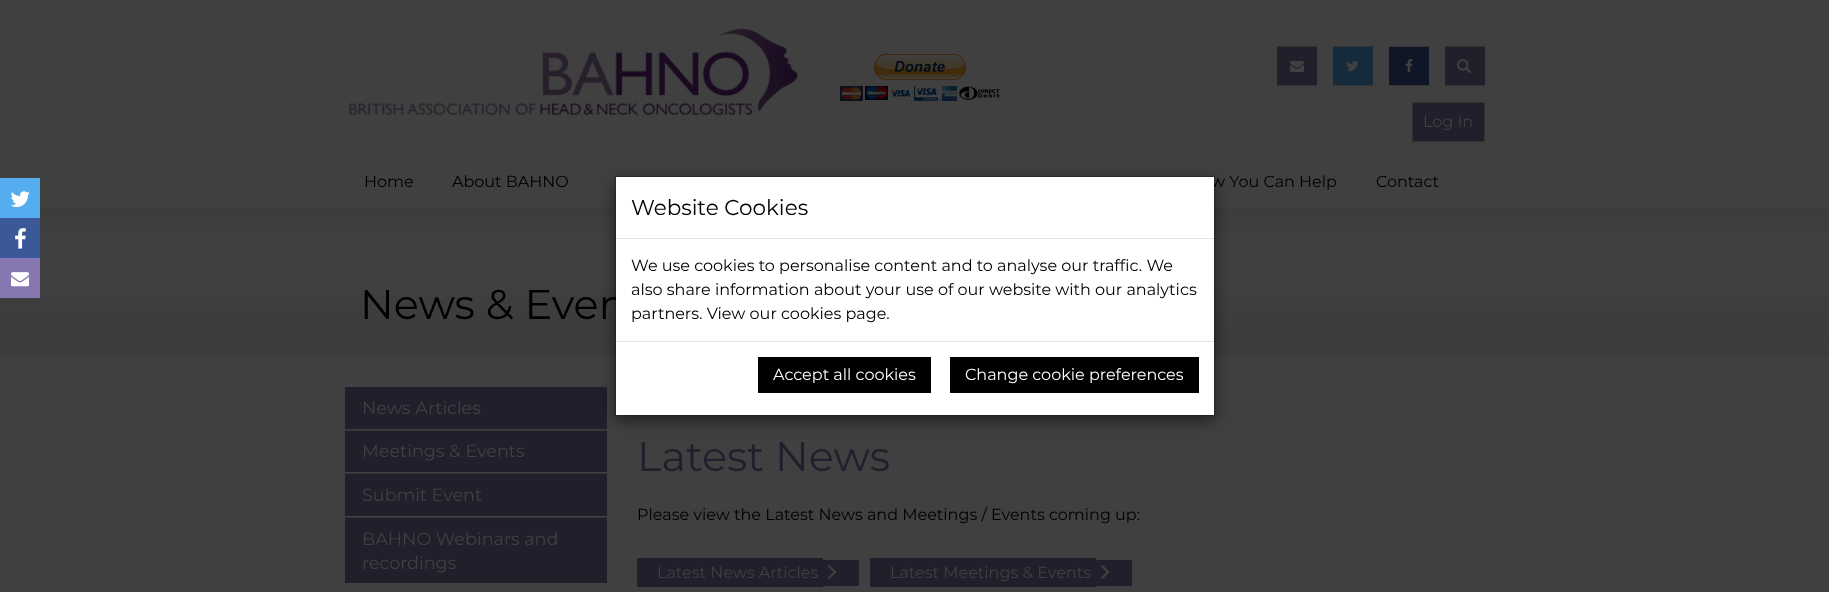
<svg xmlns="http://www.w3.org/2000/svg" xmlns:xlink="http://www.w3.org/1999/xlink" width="1829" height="592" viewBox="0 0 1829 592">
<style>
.cls-1{font:16px Montserrat;fill:#404040}
.cls-2{font:16px Montserrat;fill:#000000}
.cls-3{font:41.5px Montserrat;fill:#000000}
.cls-4{font:17.6px Montserrat;fill:#404040}
.cls-5{font:41.5px Montserrat;fill:#221e2c}
.cls-6{font:21.5px Montserrat;fill:#000000}
.cls-7{font:16px Montserrat;fill:#ffffff}
</style>
<rect width="100%" height="100%" fill="#404040"/>
<image xlink:href="image9.png" x="0" y="207" width="1829" height="150"/>
<rect fill="#55acee" x="0" y="178" width="40" height="40"/>
<image xlink:href="image0.png" x="10" y="191" width="20" height="16"/>
<rect fill="#3b5998" x="0" y="218" width="40" height="40"/>
<image xlink:href="image1.png" x="15" y="228" width="11" height="21"/>
<rect fill="#8677b0" x="0" y="258" width="40" height="40"/>
<image xlink:href="image2.png" x="11" y="272" width="18" height="15"/>
<image xlink:href="image3.png" x="349" y="28" width="449" height="88"/>
<image xlink:href="image4.png" x="840" y="54" width="160" height="47"/>
<rect fill="#221e2c" x="1277" y="47" width="40" height="38"/>
<rect fill="#333333" x="1277" y="46" width="40" height="1"/>
<rect fill="#333333" x="1277" y="85" width="40" height="1"/>
<image xlink:href="image5.png" x="1290" y="61" width="14" height="11"/>
<rect fill="#152b3c" x="1333" y="47" width="40" height="38"/>
<rect fill="#333333" x="1333" y="46" width="40" height="1"/>
<rect fill="#333333" x="1333" y="85" width="40" height="1"/>
<image xlink:href="image6.png" x="1346" y="61" width="13" height="10"/>
<rect fill="#0f1626" x="1389" y="47" width="40" height="38"/>
<rect fill="#333333" x="1389" y="46" width="40" height="1"/>
<rect fill="#333333" x="1389" y="85" width="40" height="1"/>
<image xlink:href="image7.png" x="1405" y="59" width="8" height="13"/>
<rect fill="#221e2c" x="1445" y="47" width="40" height="38"/>
<rect fill="#333333" x="1445" y="46" width="40" height="1"/>
<rect fill="#333333" x="1445" y="85" width="40" height="1"/>
<image xlink:href="image8.png" x="1457" y="59" width="14" height="14"/>
<rect fill="#221e2c" stroke="#333333" x="1412.5" y="102.5" width="72" height="39"/>
<rect fill="#221e2c" x="345" y="387" width="262" height="42"/>
<rect fill="#333333" x="345" y="430" width="262" height="1"/>
<rect fill="#221e2c" x="345" y="431" width="262" height="41"/>
<rect fill="#333333" x="345" y="473" width="262" height="1"/>
<rect fill="#221e2c" x="345" y="474" width="262" height="42"/>
<rect fill="#333333" x="345" y="517" width="262" height="1"/>
<rect fill="#221e2c" x="345" y="518" width="262" height="65"/>
<rect fill="#221e2c" x="637" y="558" width="186" height="29"/>
<rect fill="#221e2c" x="823" y="560" width="36" height="26"/>
<image xlink:href="image10.png" x="827" y="565" width="10" height="14"/>
<rect fill="#221e2c" x="870" y="558" width="226" height="29"/>
<rect fill="#221e2c" x="1096" y="560" width="36" height="26"/>
<image xlink:href="image10.png" x="1100" y="565" width="10" height="14"/>
<rect fill="#000000" fill-opacity="0.5" filter="blur(7.5px)" x="615" y="181" width="600" height="240"/>
<text class="cls-1" x="1423" y="127">Log In</text>
<text class="cls-2" x="364" y="187">Home</text>
<text class="cls-2" x="452" y="187">About BAHNO</text>
<text class="cls-2" x="1211" y="187">w You Can Help</text>
<text class="cls-2" x="1376" y="187">Contact</text>
<text class="cls-3" x="360" y="319">News &amp; Even</text>
<text class="cls-4" x="362" y="414">News Articles</text>
<text class="cls-4" x="362" y="457">Meetings &amp; Events</text>
<text class="cls-4" x="362" y="501">Submit Event</text>
<text class="cls-4"><tspan x="362" y="545">BAHNO Webinars and</tspan><tspan x="362" y="569">recordings</tspan></text>
<text class="cls-5" x="637" y="471">Latest News</text>
<text class="cls-2" x="637" y="520">Please view the Latest News and Meetings / Events coming up:</text>
<text class="cls-1" x="657" y="578">Latest News Articles</text>
<text class="cls-1" x="890" y="578">Latest Meetings &amp; Events</text>
<rect fill="#ffffff" x="616" y="177" width="598" height="238"/>
<rect fill="none" stroke="#000000" stroke-opacity="0.2" x="615.5" y="176.5" width="599" height="239"/>
<rect fill="#e5e5e5" x="616" y="238" width="598" height="1"/>
<text class="cls-6" x="631" y="215">Website Cookies</text>
<text class="cls-2"><tspan x="631" y="271">We use cookies to personalise content and to analyse our traffic. We</tspan><tspan x="631" y="295">also share information about your use of our website with our analytics</tspan><tspan x="631" y="319">partners. View our cookies page.</tspan></text>
<rect fill="#e5e5e5" x="616" y="341" width="598" height="1"/>
<rect fill="#000000" x="758" y="357" width="173" height="36"/>
<text class="cls-7" x="773" y="380">Accept all cookies</text>
<rect fill="#000000" x="950" y="357" width="249" height="36"/>
<text class="cls-7" x="965" y="380">Change cookie preferences</text>
</svg>
